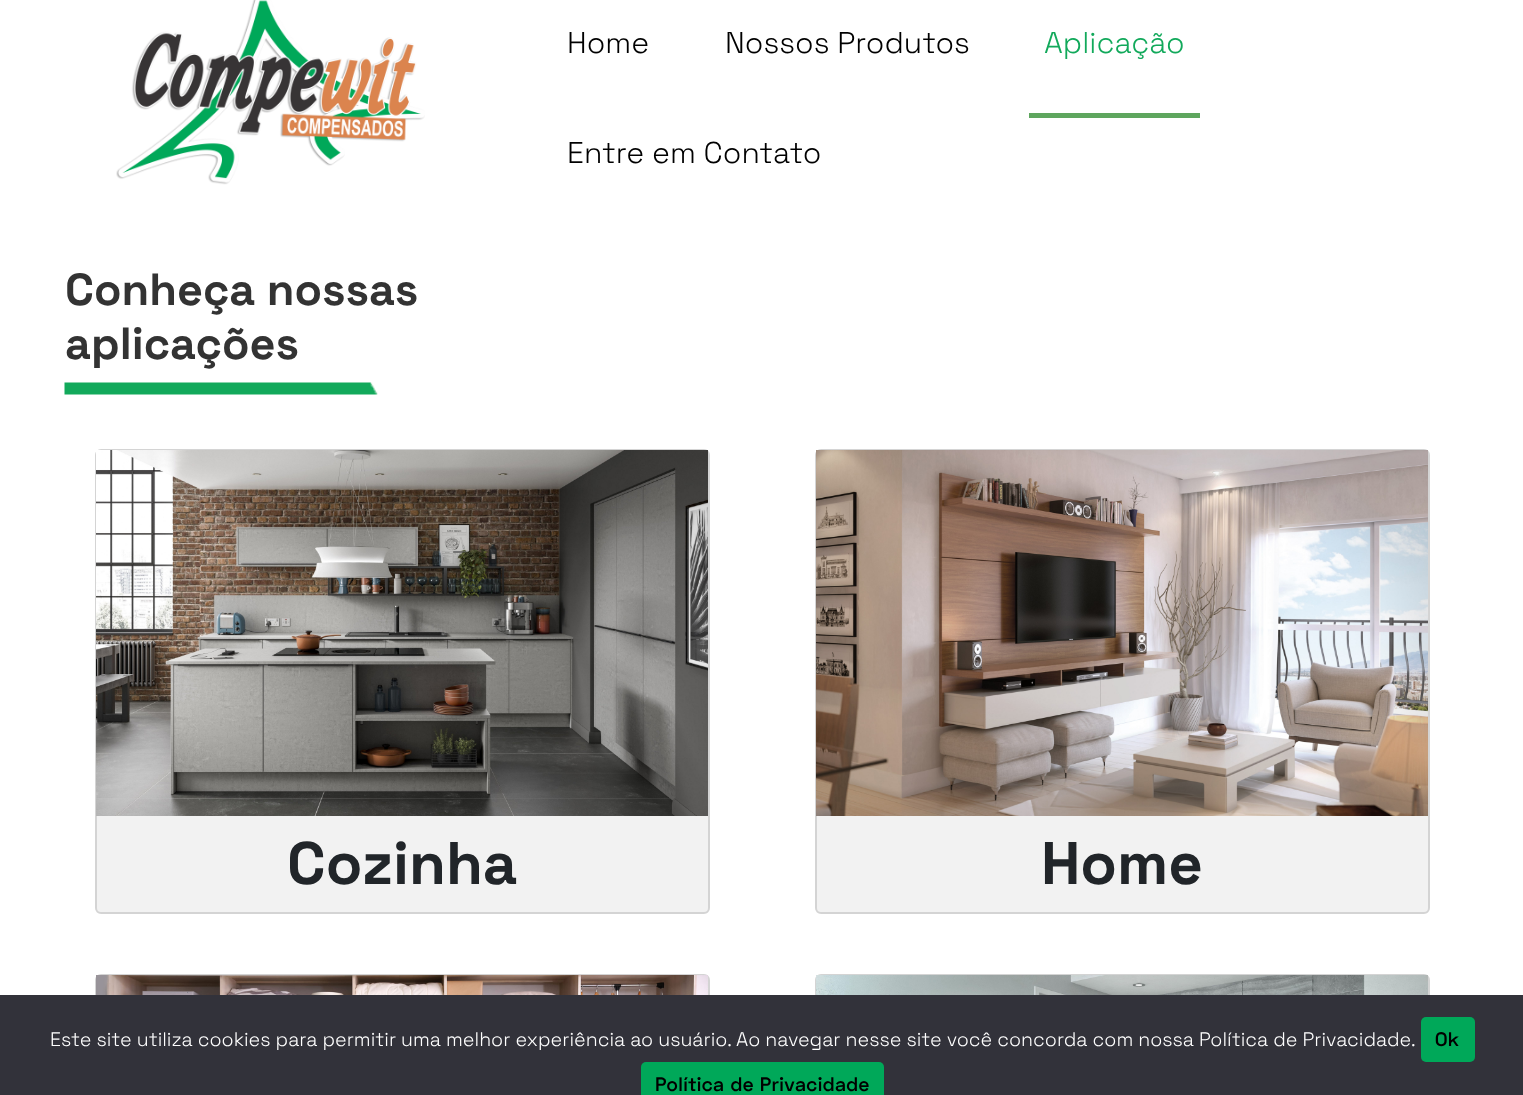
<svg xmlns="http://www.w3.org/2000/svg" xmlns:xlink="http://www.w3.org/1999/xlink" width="1523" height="1095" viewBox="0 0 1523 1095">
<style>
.cls-1{font:300 30px Space Grotesk;fill:#000000}
.cls-2{font:300 30px Space Grotesk;fill:#12a95b}
.cls-3{font:bold 45px Space Grotesk;fill:#333333}
.cls-4{font:bold 60px Space Grotesk;fill:#212529}
.cls-5{font:300 19.5px Space Grotesk;fill:#ffffff}
.cls-6{font:600 19.5px Space Grotesk;letter-spacing:0.4px;fill:#000000}
</style>
<rect width="100%" height="100%" fill="#ffffff"/>
<image xlink:href="image0.png" x="116" y="0" width="309" height="185"/>
<rect fill="#5ea65e" x="1029" y="113" width="171" height="5"/>
<image xlink:href="image1.png" x="64" y="382" width="314" height="13"/>
<rect fill="#f2f2f2" x="95" y="449" width="615" height="465" rx="6"/>
<rect fill="none" stroke="#000000" stroke-opacity="0.12" stroke-width="2" x="96" y="450" width="613" height="463" rx="5"/>
<image xlink:href="image2.png" x="96" y="450" width="612" height="366"/>
<rect fill="#f2f2f2" x="815" y="449" width="615" height="465" rx="6"/>
<rect fill="none" stroke="#000000" stroke-opacity="0.12" stroke-width="2" x="816" y="450" width="613" height="463" rx="5"/>
<image xlink:href="image3.png" x="816" y="450" width="612" height="366"/>
<rect fill="#f2f2f2" x="95" y="974" width="615" height="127" rx="6"/>
<rect fill="none" stroke="#000000" stroke-opacity="0.12" stroke-width="2" x="96" y="975" width="613" height="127" rx="5"/>
<image xlink:href="image4.png" x="96" y="975" width="612" height="20"/>
<rect fill="#f2f2f2" x="815" y="974" width="615" height="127" rx="6"/>
<rect fill="none" stroke="#000000" stroke-opacity="0.12" stroke-width="2" x="816" y="975" width="613" height="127" rx="5"/>
<image xlink:href="image5.png" x="816" y="975" width="612" height="20"/>
<rect fill="#32323a" x="0" y="995" width="1523" height="100"/>
<rect fill="#00a859" x="1421" y="1017" width="54" height="45" rx="5"/>
<rect fill="#00a859" x="641" y="1062" width="243" height="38" rx="5"/>
<text class="cls-1" x="567" y="53">Home</text>
<text class="cls-1" x="725" y="53">Nossos Produtos</text>
<text class="cls-2" x="1044" y="53">Aplicação</text>
<text class="cls-1" x="567" y="163">Entre em Contato</text>
<text class="cls-3"><tspan x="65" y="305">Conheça nossas</tspan><tspan x="65" y="359">aplicações</tspan></text>
<text class="cls-4" x="287" y="884">Cozinha</text>
<text class="cls-4" x="1041" y="884">Home</text>
<text class="cls-5" x="50" y="1046">Este site utiliza cookies para permitir uma melhor experiência ao usuário. Ao navegar nesse site você concorda com nossa Política de Privacidade.</text>
<text class="cls-6" x="1435" y="1046">Ok</text>
<text class="cls-6" x="655" y="1091">Política de Privacidade</text>
</svg>
